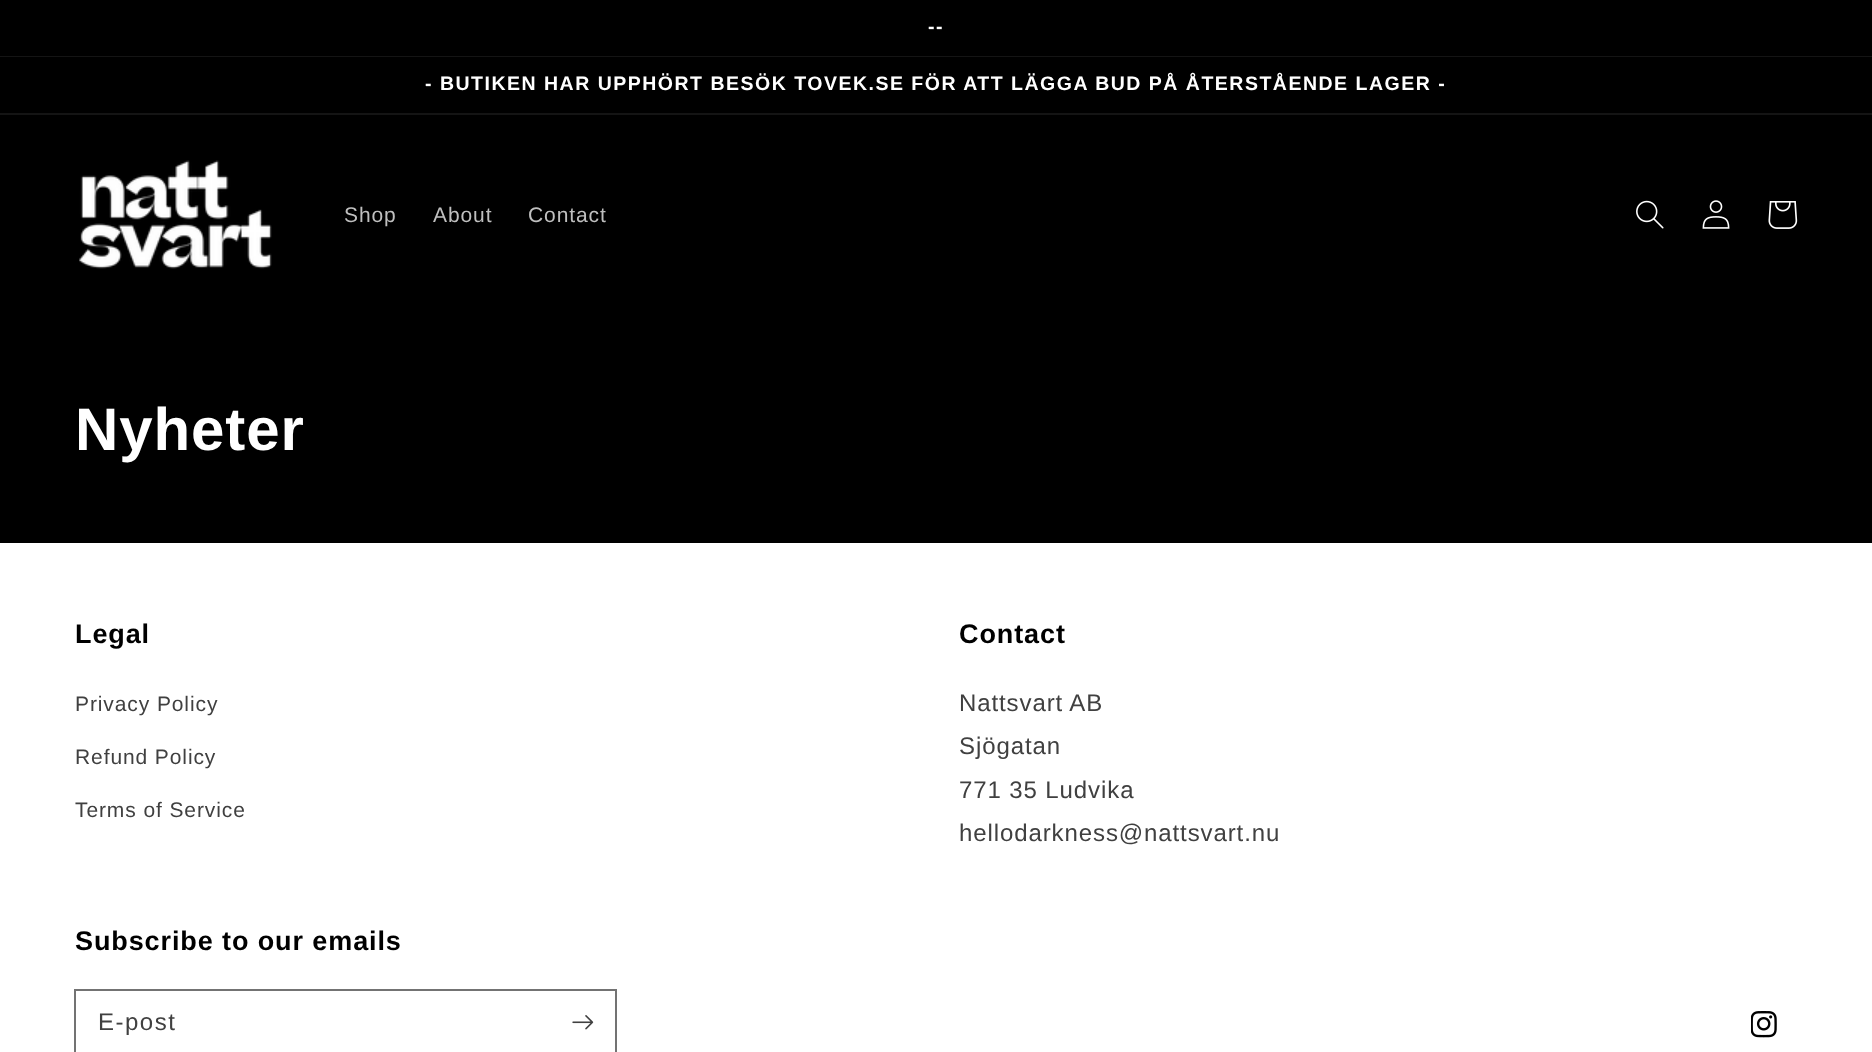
<svg xmlns="http://www.w3.org/2000/svg" xmlns:xlink="http://www.w3.org/1999/xlink" width="1872" height="1052" viewBox="0 0 1872 1052">
<style>
.cls-1{font:bold 19.5px Liberation Sans;letter-spacing:1.5px;fill:#ffffff}
.cls-2{font:21px Liberation Sans;letter-spacing:0.9px;fill:#bfbfbf}
.cls-3{font:bold 60px Liberation Sans;letter-spacing:0.9px;fill:#ffffff}
.cls-4{font:bold 27px Liberation Sans;letter-spacing:0.9px;fill:#000000}
.cls-5{font:21px Liberation Sans;letter-spacing:0.9px;fill:#404040}
.cls-6{font:24px Liberation Sans;letter-spacing:0.9px;fill:#404040}
.cls-7{font:24px Liberation Sans;letter-spacing:1.5px;fill:#404040}
</style>
<rect width="100%" height="100%" fill="#000000"/>
<rect fill="#141414" x="0" y="56" width="1872" height="1"/>
<rect fill="#141414" x="0" y="113" width="1872" height="2"/>
<image xlink:href="image0.png" x="79" y="160" width="193" height="109"/>
<image xlink:href="image1.png" x="1636" y="200" width="28" height="29"/>
<image xlink:href="image2.png" x="1702" y="200" width="28" height="29"/>
<image xlink:href="image3.png" x="1768" y="201" width="30" height="28"/>
<rect fill="#ffffff" x="0" y="543" width="1872" height="509"/>
<rect fill="none" stroke="#737373" stroke-width="2" x="75" y="990" width="541" height="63"/>
<image xlink:href="image4.png" x="572" y="1015" width="22" height="15"/>
<image xlink:href="image5.png" x="1751" y="1011" width="26" height="27"/>
<text class="cls-1" x="928" y="33">--</text>
<text class="cls-1" x="425" y="90">- BUTIKEN HAR UPPHÖRT BESÖK TOVEK.SE FÖR ATT LÄGGA BUD PÅ ÅTERSTÅENDE LAGER -</text>
<text class="cls-2" x="344" y="222">Shop</text>
<text class="cls-2" x="433" y="222">About</text>
<text class="cls-2" x="528" y="222">Contact</text>
<text class="cls-3" x="75" y="450">Nyheter</text>
<text class="cls-4" x="75" y="643">Legal</text>
<text class="cls-5" x="75" y="711">Privacy Policy</text>
<text class="cls-5" x="75" y="764">Refund Policy</text>
<text class="cls-5" x="75" y="817">Terms of Service</text>
<text class="cls-4" x="959" y="643">Contact</text>
<text class="cls-6"><tspan x="959" y="711">Nattsvart AB</tspan><tspan x="959" y="754">Sjögatan</tspan><tspan x="959" y="798">771 35 Ludvika</tspan><tspan x="959" y="841">hellodarkness@nattsvart.nu</tspan></text>
<text class="cls-4" x="75" y="950">Subscribe to our emails</text>
<text class="cls-7" x="98" y="1030">E-post</text>
</svg>
